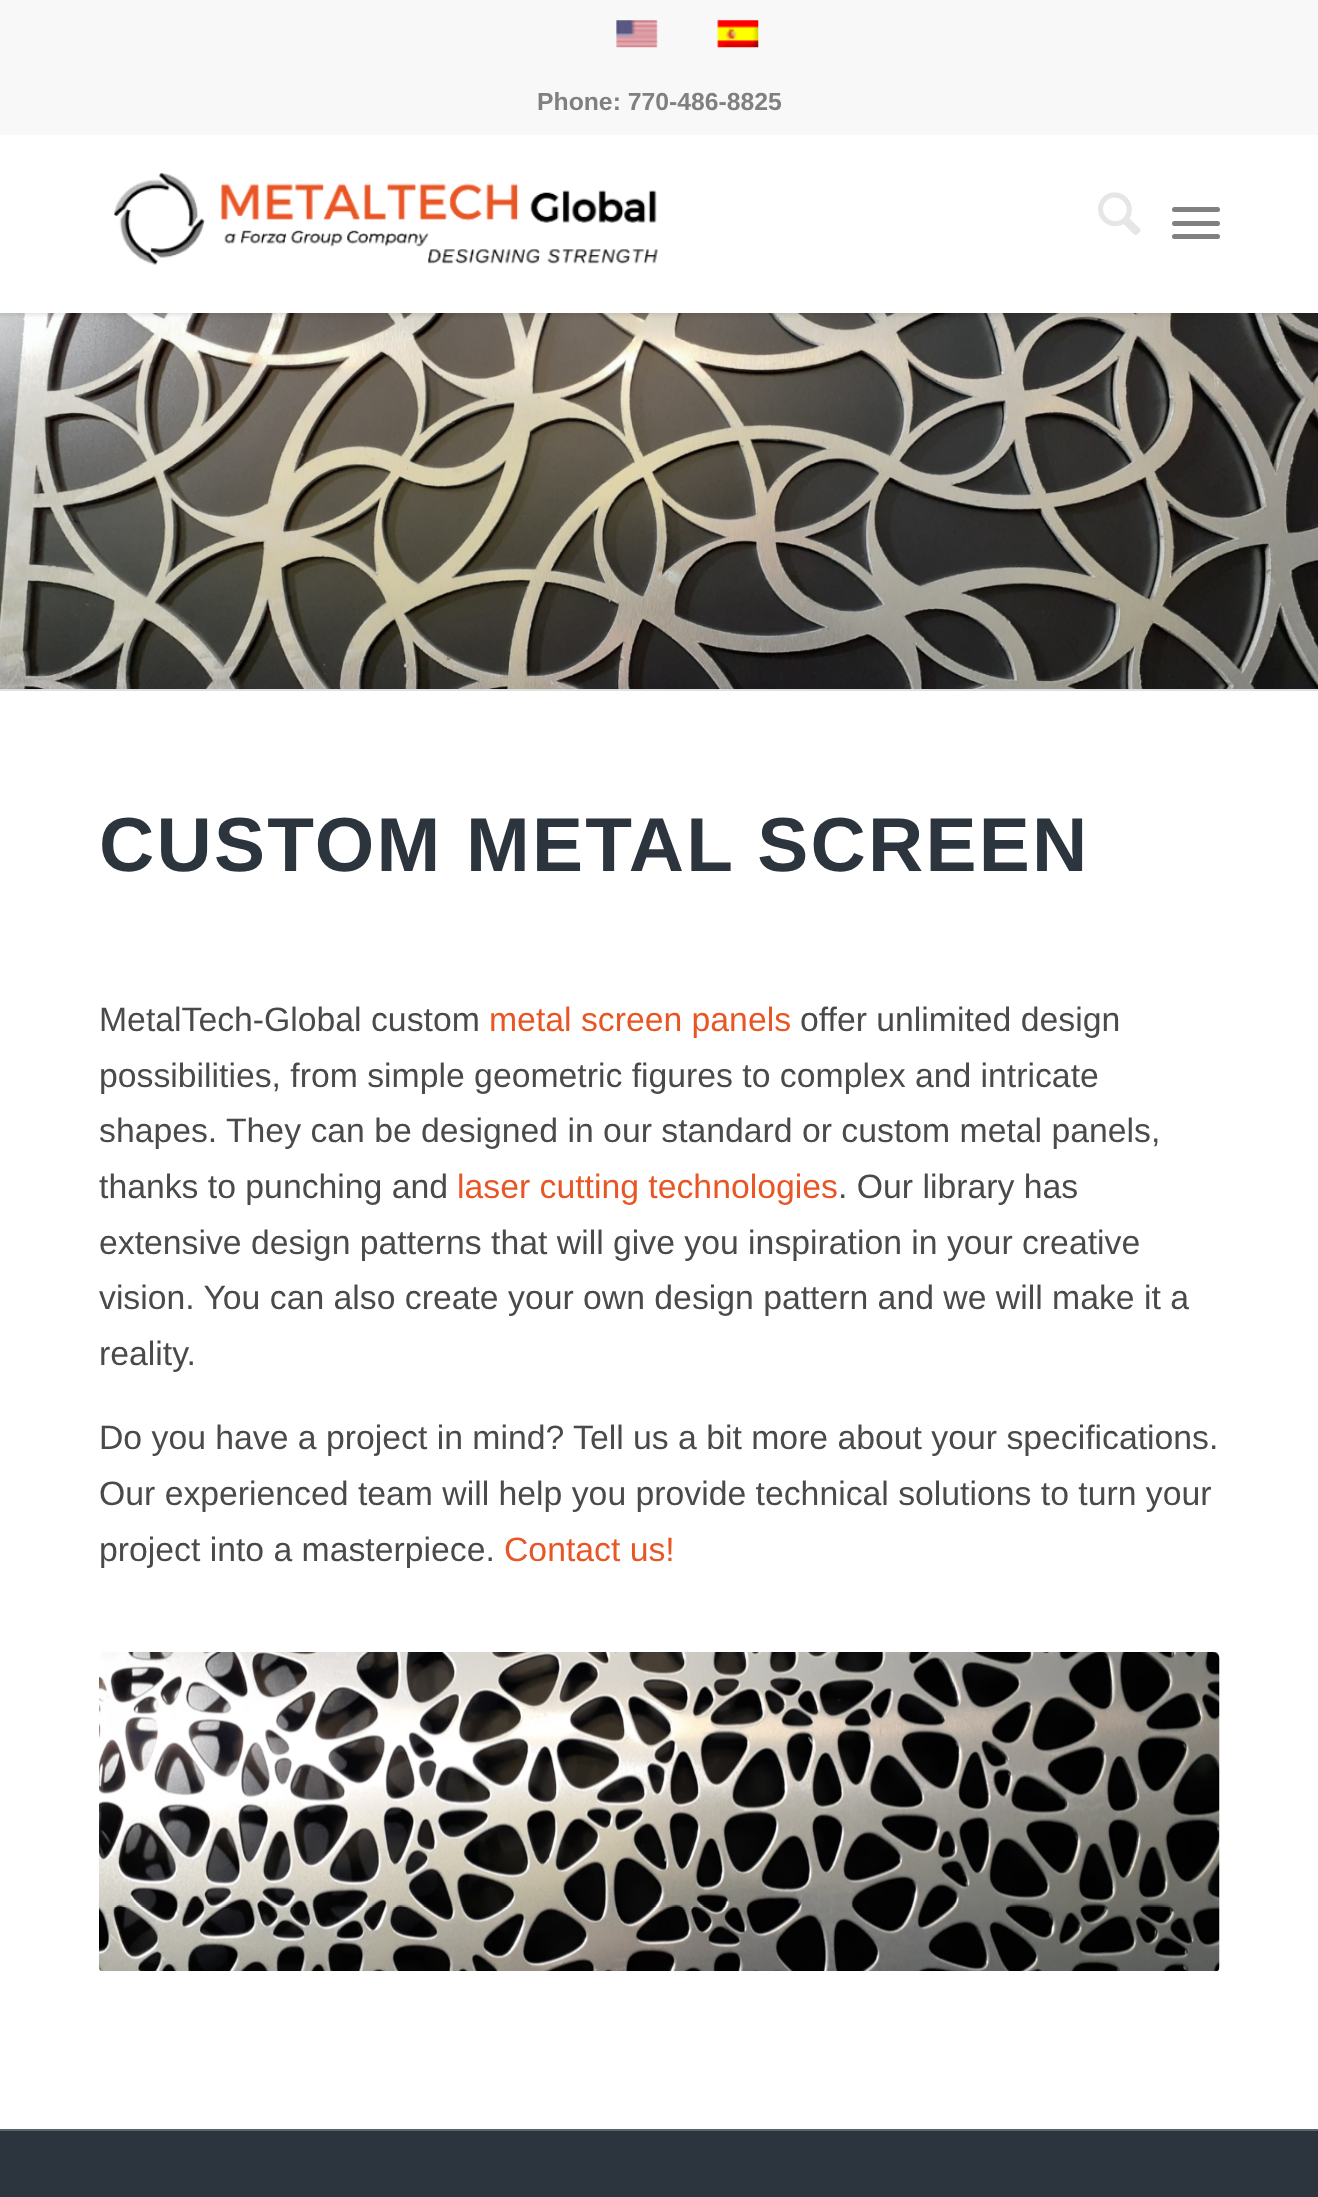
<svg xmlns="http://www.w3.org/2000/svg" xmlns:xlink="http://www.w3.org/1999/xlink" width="1318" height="2197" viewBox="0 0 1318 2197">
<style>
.cls-1{font:bold 24.75px Liberation Sans;fill:#808080}
.cls-2{font:bold 76.5px Liberation Sans;letter-spacing:2.25px;fill:#2c353d}
.cls-3{font:33.75px Liberation Sans;fill:#4a4a4a}
.cls-4{font:33.75px Liberation Sans;fill:#e85625}
</style>
<rect width="100%" height="100%" fill="#ffffff"/>
<image xlink:href="image4.png" x="0" y="313" width="1318" height="376"/>
<rect fill="#000000" fill-opacity="0.1" filter="blur(2px)" x="-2" y="-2" width="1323" height="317"/>
<rect fill="#f8f8f8" x="0" y="0" width="1318" height="135"/>
<image xlink:href="image0.png" x="616" y="20" width="42" height="28"/>
<image xlink:href="image1.png" x="717" y="20" width="42" height="28"/>
<rect fill="#ffffff" x="0" y="135" width="1318" height="178"/>
<image xlink:href="image2.png" x="113" y="173" width="545" height="92"/>
<image xlink:href="image3.png" x="1098" y="192" width="43" height="43"/>
<rect fill="#808080" x="1172" y="221" width="48" height="5" rx="2.5"/>
<rect fill="#808080" x="1172" y="207" width="48" height="5" rx="2.5"/>
<rect fill="#808080" x="1172" y="234" width="48" height="5" rx="2.5"/>
<rect fill="#e1e1e1" x="0" y="689" width="1318" height="2"/>
<image xlink:href="image5.png" x="99" y="1652" width="1121" height="319"/>
<rect fill="#2c353d" x="0" y="2131" width="1318" height="66"/>
<rect fill="#5b646b" x="0" y="2129" width="1318" height="2"/>
<text class="cls-1" x="537" y="110">Phone: 770-486-8825</text>
<text class="cls-2" x="99" y="871">CUSTOM METAL SCREEN</text>
<text class="cls-3" x="99" y="1031">MetalTech-Global custom</text>
<text class="cls-4" x="489" y="1031">metal screen panels</text>
<text class="cls-3" x="800" y="1031">offer unlimited design</text>
<text class="cls-3"><tspan x="99" y="1087">possibilities, from simple geometric figures to complex and intricate</tspan><tspan x="99" y="1142">shapes. They can be designed in our standard or custom metal panels,</tspan><tspan x="99" y="1198">thanks to punching and</tspan></text>
<text class="cls-4" x="457" y="1198">laser cutting technologies</text>
<text class="cls-3" x="838" y="1198">. Our library has</text>
<text class="cls-3"><tspan x="99" y="1254">extensive design patterns that will give you inspiration in your creative</tspan><tspan x="99" y="1309">vision. You can also create your own design pattern and we will make it a</tspan><tspan x="99" y="1365">reality.</tspan></text>
<text class="cls-3"><tspan x="99" y="1449">Do you have a project in mind? Tell us a bit more about your specifications.</tspan><tspan x="99" y="1505">Our experienced team will help you provide technical solutions to turn your</tspan><tspan x="99" y="1561">project into a masterpiece.</tspan></text>
<text class="cls-4" x="504" y="1561">Contact us!</text>
</svg>
